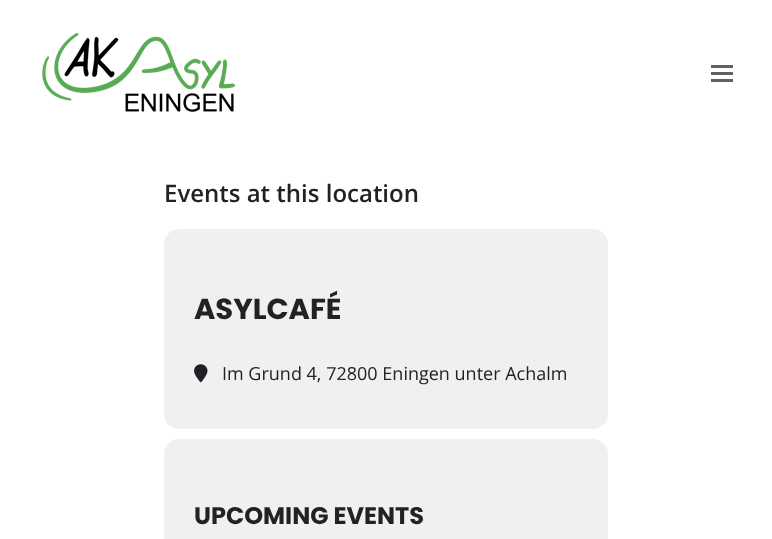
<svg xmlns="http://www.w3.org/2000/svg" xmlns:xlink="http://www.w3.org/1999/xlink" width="772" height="539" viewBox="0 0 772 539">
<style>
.cls-1{font:600 24px Open Sans;fill:#222222}
.cls-2{font:bold 29px Poppins;fill:#222222}
.cls-3{font:18px Open Sans;fill:#222222}
.cls-4{font:bold 24px Poppins;fill:#222222}
</style>
<rect width="100%" height="100%" fill="#ffffff"/>
<image xlink:href="image0.png" x="42" y="32" width="194" height="80"/>
<rect fill="#616161" x="711" y="72" width="22" height="3"/>
<rect fill="#616161" x="711" y="65" width="22" height="3"/>
<rect fill="#616161" x="711" y="79" width="22" height="3"/>
<rect fill="#f0f0f0" x="164" y="229" width="444" height="200" rx="15"/>
<image xlink:href="image1.png" x="194" y="364" width="14" height="19"/>
<rect fill="#f0f0f0" x="164" y="439" width="444" height="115" rx="15"/>
<text class="cls-1" x="164" y="202">Events at this location</text>
<text class="cls-2" x="194" y="319">ASYLCAFÉ</text>
<text class="cls-3" x="222" y="380">Im Grund 4, 72800 Eningen unter Achalm</text>
<text class="cls-4" x="194" y="524">UPCOMING EVENTS</text>
</svg>
